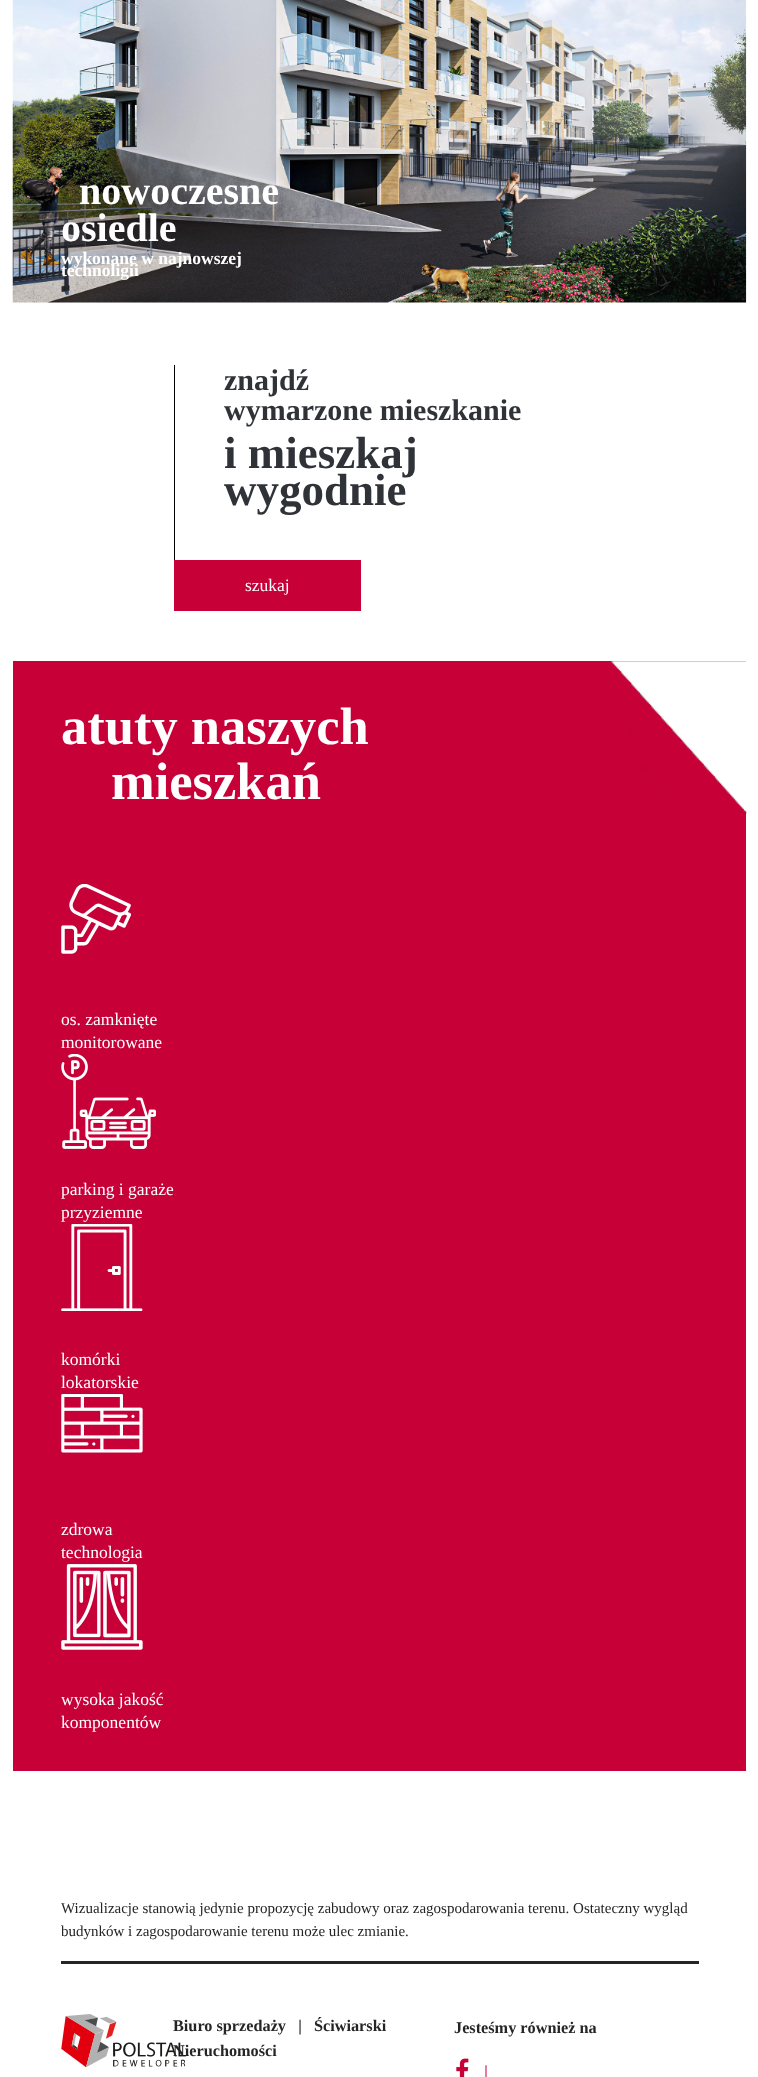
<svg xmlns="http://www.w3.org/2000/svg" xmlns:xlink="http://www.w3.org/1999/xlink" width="758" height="2077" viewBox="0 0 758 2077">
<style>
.cls-1{font:bold 40px Liberation Serif;fill:#ffffff}
.cls-2{font:bold 17.5px Liberation Serif;fill:#ffffff}
.cls-3{font:bold 30px Liberation Serif;fill:#2f3338}
.cls-4{font:bold 45px Liberation Serif;fill:#2f3338}
.cls-5{font:17.5px Liberation Serif;fill:#ffffff}
.cls-6{font:bold 52.5px Liberation Serif;fill:#ffffff}
.cls-7{font:15px Liberation Serif;fill:#252525}
.cls-8{font:bold 16.25px Liberation Serif;fill:#252525}
.cls-9{font:20px Liberation Serif;fill:#c70038}
</style>
<rect width="100%" height="100%" fill="#ffffff"/>
<image xlink:href="image0.png" x="12" y="0" width="735" height="303"/>
<rect fill="#000000" x="174" y="365" width="1" height="195"/>
<rect fill="#c70038" x="174" y="560" width="187" height="51"/>
<rect fill="#c70038" x="13" y="661" width="733" height="1110"/>
<image xlink:href="image1.png" x="61" y="884" width="70" height="70"/>
<image xlink:href="image2.png" x="61" y="1054" width="95" height="95"/>
<image xlink:href="image3.png" x="61" y="1224" width="82" height="87"/>
<image xlink:href="image4.png" x="61" y="1394" width="82" height="59"/>
<image xlink:href="image5.png" x="61" y="1564" width="82" height="86"/>
<image xlink:href="image6.png" x="610" y="661" width="137" height="153"/>
<rect fill="#252525" x="61" y="1961" width="638" height="3"/>
<image xlink:href="image7.png" x="61" y="2014" width="125" height="54"/>
<image xlink:href="image8.png" x="456" y="2058" width="13" height="19"/>
<text class="cls-1" x="79" y="204">nowoczesne</text>
<text class="cls-1" x="61" y="241">osiedle</text>
<text class="cls-2"><tspan x="61" y="264">wykonane w najnowszej</tspan><tspan x="61" y="276">technoligii</tspan></text>
<text class="cls-3"><tspan x="224" y="390">znajdź</tspan><tspan x="224" y="420">wymarzone mieszkanie</tspan></text>
<text class="cls-4"><tspan x="224" y="468">i mieszkaj</tspan><tspan x="224" y="505">wygodnie</tspan></text>
<text class="cls-5" x="245" y="591">szukaj</text>
<text class="cls-6" x="61" y="744">atuty naszych</text>
<text class="cls-6" x="111" y="799">mieszkań</text>
<text class="cls-5"><tspan x="61" y="1025">os. zamknięte</tspan><tspan x="61" y="1048">monitorowane</tspan></text>
<text class="cls-5"><tspan x="61" y="1195">parking i garaże</tspan><tspan x="61" y="1218">przyziemne</tspan></text>
<text class="cls-5"><tspan x="61" y="1365">komórki</tspan><tspan x="61" y="1388">lokatorskie</tspan></text>
<text class="cls-5"><tspan x="61" y="1535">zdrowa</tspan><tspan x="61" y="1558">technologia</tspan></text>
<text class="cls-5"><tspan x="61" y="1705">wysoka jakość</tspan><tspan x="61" y="1728">komponentów</tspan></text>
<text class="cls-7"><tspan x="61" y="1913">Wizualizacje stanowią jedynie propozycję zabudowy oraz zagospodarowania terenu. Ostateczny wygląd</tspan><tspan x="61" y="1936">budynków i zagospodarowanie terenu może ulec zmianie.</tspan></text>
<text class="cls-8" xml:space="preserve"><tspan x="173" y="2031">Biuro sprzedaży   |   Ściwiarski</tspan><tspan x="173" y="2056">Nieruchomości</tspan></text>
<text class="cls-8" x="454" y="2033">Jesteśmy również na</text>
<text class="cls-9" x="484" y="2079">|</text>
</svg>
